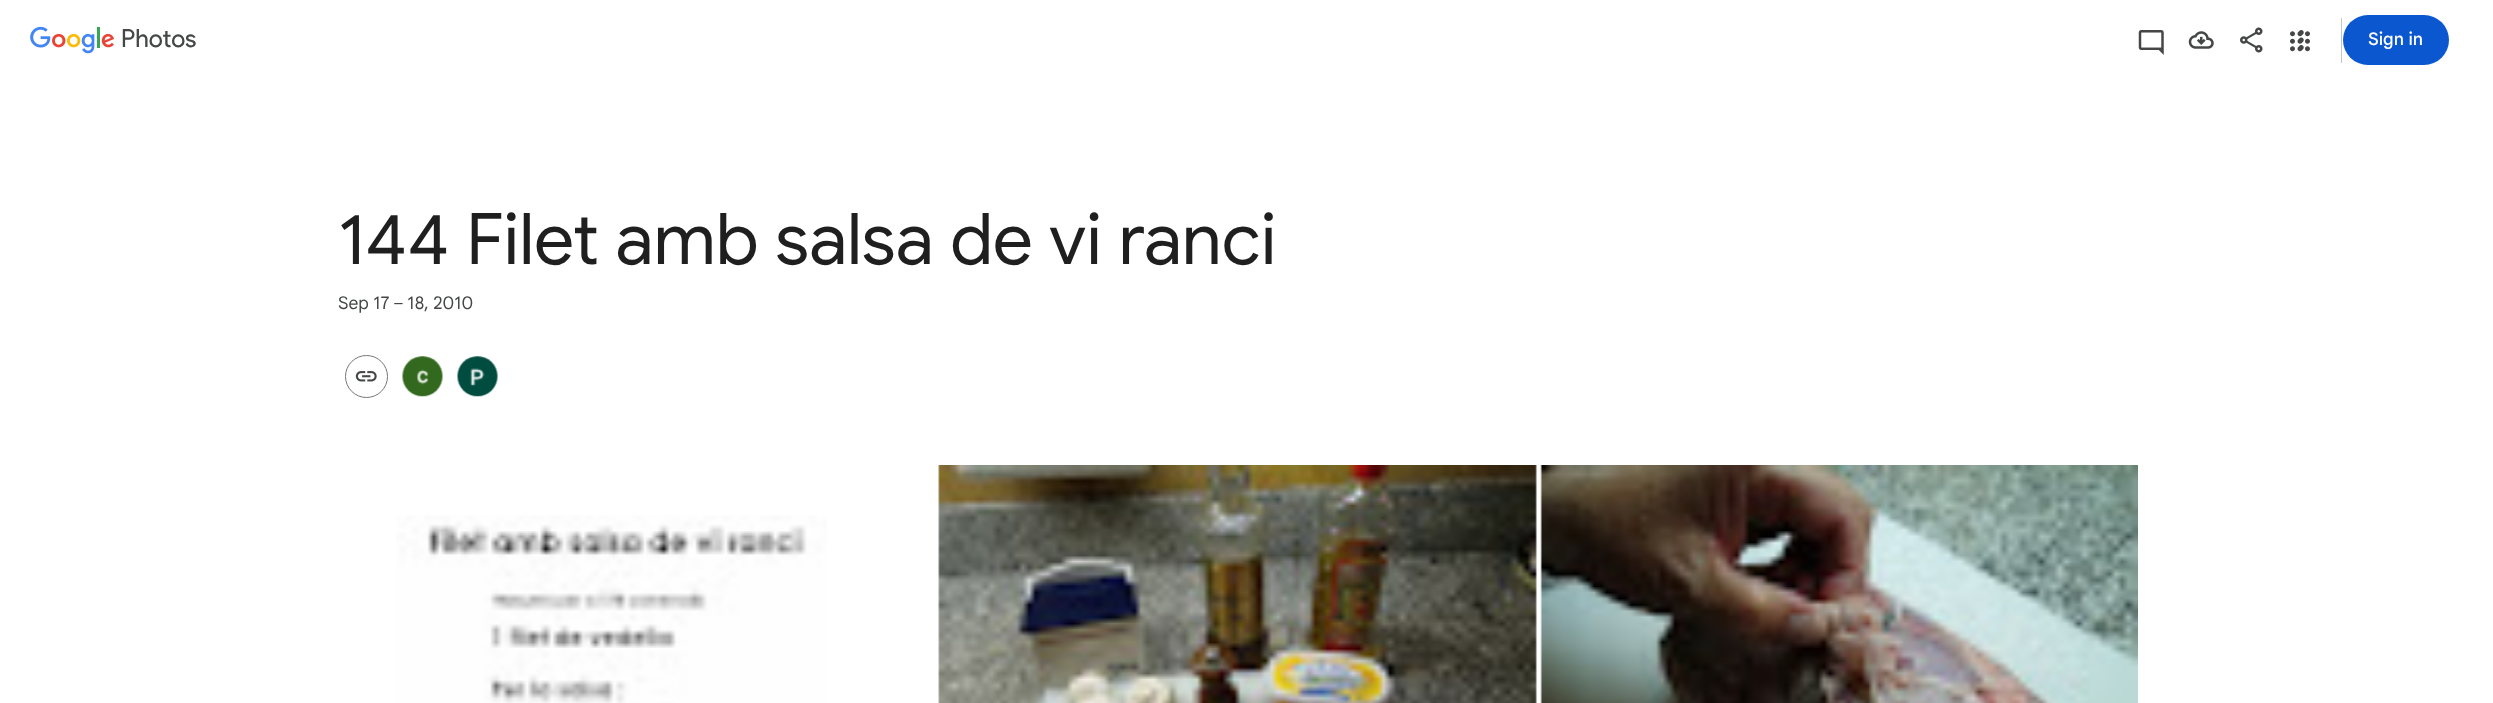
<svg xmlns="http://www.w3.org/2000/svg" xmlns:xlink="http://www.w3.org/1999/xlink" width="2493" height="703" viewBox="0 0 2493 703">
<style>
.cls-1{font:25px Product Sans;fill:#444746}
.cls-2{font:71.25px Google Sans;fill:#1f1f1f}
.cls-3{font:17.5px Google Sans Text;fill:#444746}
.cls-4{font:500 17.5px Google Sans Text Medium;fill:#ffffff}
</style>
<rect width="100%" height="100%" fill="#ffffff"/>
<image xlink:href="image0.png" x="30" y="26" width="84" height="28"/>
<image xlink:href="image1.png" x="2138" y="30" width="26" height="25"/>
<image xlink:href="image2.png" x="2188" y="31" width="26" height="18"/>
<image xlink:href="image3.png" x="2240" y="27" width="23" height="26"/>
<image xlink:href="image4.png" x="2298" y="30" width="6" height="20"/>
<rect fill="#c4c7c5" x="2341" y="18" width="1" height="45"/>
<circle fill="none" stroke="#747775" cx="366.5" cy="376.5" r="21"/>
<image xlink:href="image5.png" x="355" y="371" width="22" height="11"/>
<image xlink:href="image6.png" x="402" y="356" width="41" height="41"/>
<image xlink:href="image7.png" x="457" y="356" width="41" height="41"/>
<image xlink:href="image8.png" x="396" y="515" width="431" height="188"/>
<image xlink:href="image9.png" x="938" y="465" width="599" height="238"/>
<image xlink:href="image10.png" x="1540" y="465" width="598" height="238"/>
<image xlink:href="image11.png" x="2290" y="31" width="20" height="21"/>
<rect fill="#0b57d0" x="2343" y="15" width="106" height="50" rx="25"/>
<text class="cls-1" x="121" y="47">Photos</text>
<text class="cls-2" x="338" y="264">144 Filet amb salsa de vi ranci</text>
<text class="cls-3" x="338" y="309">Sep 17 – 18, 2010</text>
<text class="cls-4" x="2368" y="45">Sign in</text>
</svg>
